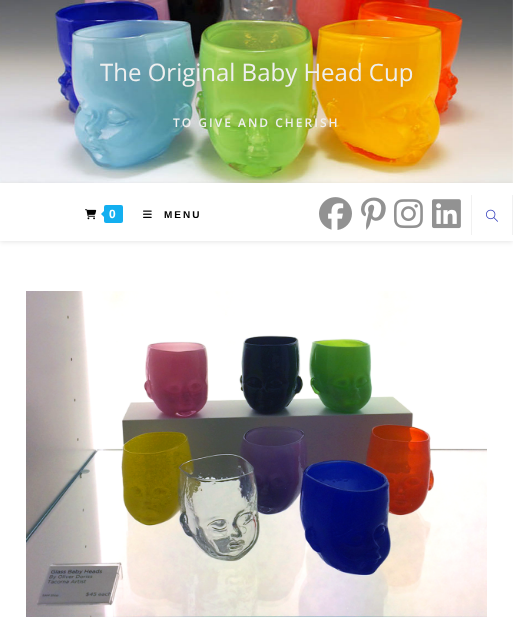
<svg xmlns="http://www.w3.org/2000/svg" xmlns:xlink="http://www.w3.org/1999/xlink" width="513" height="617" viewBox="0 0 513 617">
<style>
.cls-1{font:24px Open Sans;fill:#efefef}
.cls-2{font:600 12px Open Sans;letter-spacing:2px;fill:#efefef}
.cls-3{font:bold 12px Liberation Sans;letter-spacing:2px;fill:#ffffff}
.cls-4{font:bold 10px Liberation Sans;letter-spacing:2px;fill:#020202}
</style>
<rect width="100%" height="100%" fill="#ffffff"/>
<image xlink:href="image0.png" x="0" y="0" width="513" height="183"/>
<rect fill="#000000" fill-opacity="0.1" filter="blur(2.5px)" x="0" y="184" width="513" height="58"/>
<rect fill="#ffffff" x="0" y="183" width="513" height="58"/>
<image xlink:href="image1.png" x="85" y="209" width="12" height="11"/>
<rect fill="#13aff0" x="104" y="205" width="19" height="18" rx="2"/>
<path fill="#13aff0" d="M106 209V219L101 214Z"/>
<image xlink:href="image2.png" x="143" y="210" width="9" height="8"/>
<image xlink:href="image3.png" x="319" y="197" width="33" height="33"/>
<image xlink:href="image4.png" x="361" y="197" width="25" height="33"/>
<image xlink:href="image5.png" x="394" y="199" width="29" height="30"/>
<image xlink:href="image6.png" x="432" y="199" width="29" height="30"/>
<rect fill="#f1f1f1" x="512" y="195" width="1" height="40"/>
<rect fill="#f1f1f1" x="471" y="195" width="1" height="40"/>
<image xlink:href="image7.png" x="486" y="209" width="12" height="13"/>
<image xlink:href="image8.png" x="26" y="291" width="461" height="326"/>
<text class="cls-1" x="100" y="81">The Original Baby Head Cup</text>
<text class="cls-2" x="173" y="127">TO GIVE AND CHERISH</text>
<text class="cls-3" x="109" y="218">0</text>
<text class="cls-4" x="164" y="218">MENU</text>
</svg>
